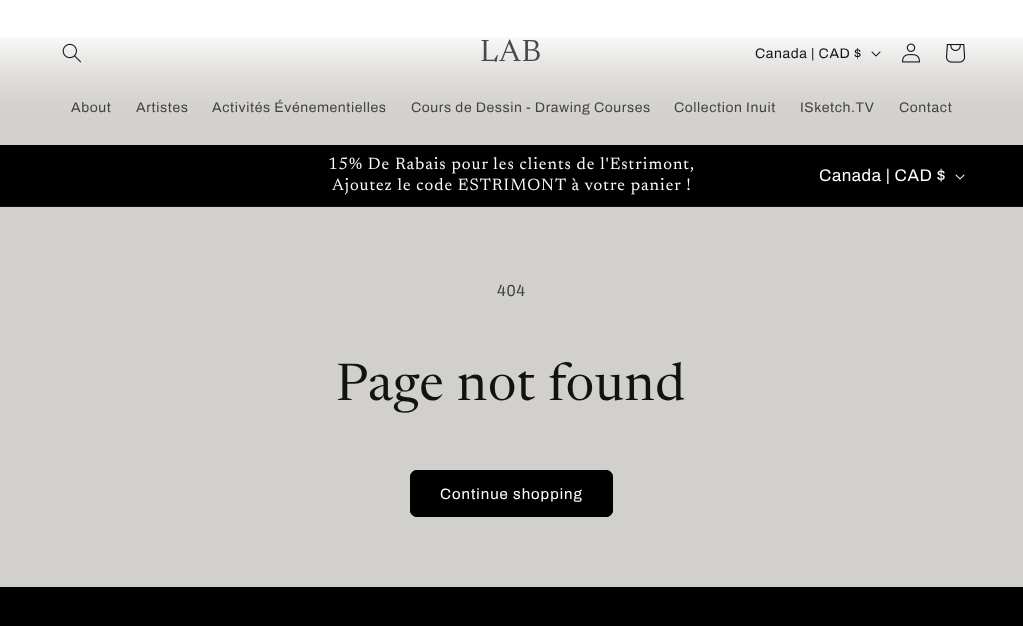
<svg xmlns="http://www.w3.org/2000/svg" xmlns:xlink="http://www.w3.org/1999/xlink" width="1023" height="626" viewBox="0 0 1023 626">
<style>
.cls-1{font:31px 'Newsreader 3';letter-spacing:0.75px;fill:#494949}
.cls-2{font:14px Archivo;letter-spacing:0.6px;fill:#121212}
.cls-3{font:14px Archivo;letter-spacing:0.6px;fill:#424241}
.cls-4{font:16.9px Newsreader;letter-spacing:1px;fill:#ffffff}
.cls-5{font:16.9px Archivo;letter-spacing:0.6px;fill:#ffffff}
.cls-6{font:16px Archivo;letter-spacing:0.6px;fill:#424241}
.cls-7{font:52px 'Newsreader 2';letter-spacing:0.75px;fill:#121212}
.cls-8{font:15px Archivo;letter-spacing:1px;fill:#ffffff}
</style>
<defs>
<linearGradient id="g1" gradientUnits="userSpaceOnUse" x1="512" y1="626" x2="512" y2="0"><stop offset="0.79" stop-color="#d2d0cd"/><stop offset="0.95" stop-color="#ffffff"/><stop offset="0.97" stop-color="#ffffff"/></linearGradient>
<linearGradient id="g2" gradientUnits="userSpaceOnUse" x1="512" y1="626" x2="512" y2="0"><stop offset="0.79" stop-color="#d2d0cd"/><stop offset="0.95" stop-color="#d2d0cd" stop-opacity="0"/><stop offset="0.95" stop-color="#ffffff" stop-opacity="0"/><stop offset="0.97" stop-color="#ffffff"/></linearGradient>
</defs>
<rect width="100%" height="100%" fill="#ffffff"/>
<rect fill="url(#g1)" x="0" y="36" width="1023" height="551"/>
<rect fill="url(#g2)" x="0" y="37" width="1023" height="89"/>
<image xlink:href="image0.png" x="62" y="43" width="19" height="20"/>
<image xlink:href="image1.png" x="871" y="51" width="10" height="6"/>
<image xlink:href="image2.png" x="902" y="43" width="18" height="20"/>
<image xlink:href="image3.png" x="946" y="44" width="20" height="19"/>
<rect fill="#000000" x="0" y="145" width="1023" height="61"/>
<rect fill="#141414" x="0" y="206" width="1023" height="1"/>
<image xlink:href="image4.png" x="955" y="174" width="10" height="6"/>
<rect fill="#000000" x="410" y="470" width="203" height="47" rx="7"/>
<rect fill="none" stroke="#000000" x="410.5" y="470.5" width="202" height="46" rx="6.5"/>
<rect fill="#000000" x="0" y="587" width="1023" height="39"/>
<text class="cls-1" x="480" y="61">LAB</text>
<text class="cls-2" x="755" y="58">Canada | CAD $</text>
<text class="cls-3" x="71" y="112">About</text>
<text class="cls-3" x="136" y="112">Artistes</text>
<text class="cls-3" x="212" y="112">Activités Événementielles</text>
<text class="cls-3" x="411" y="112">Cours de Dessin - Drawing Courses</text>
<text class="cls-3" x="674" y="112">Collection Inuit</text>
<text class="cls-3" x="800" y="112">ISketch.TV</text>
<text class="cls-3" x="899" y="112">Contact</text>
<text class="cls-4" x="328" y="169">15% De Rabais pour les clients de l'Estrimont,</text>
<text class="cls-4" x="332" y="190">Ajoutez le code ESTRIMONT à votre panier !</text>
<text class="cls-5" x="819" y="181">Canada | CAD $</text>
<text class="cls-6" x="497" y="296">404</text>
<text class="cls-7" x="336" y="400">Page not found</text>
<text class="cls-8" x="440" y="499">Continue shopping</text>
</svg>
